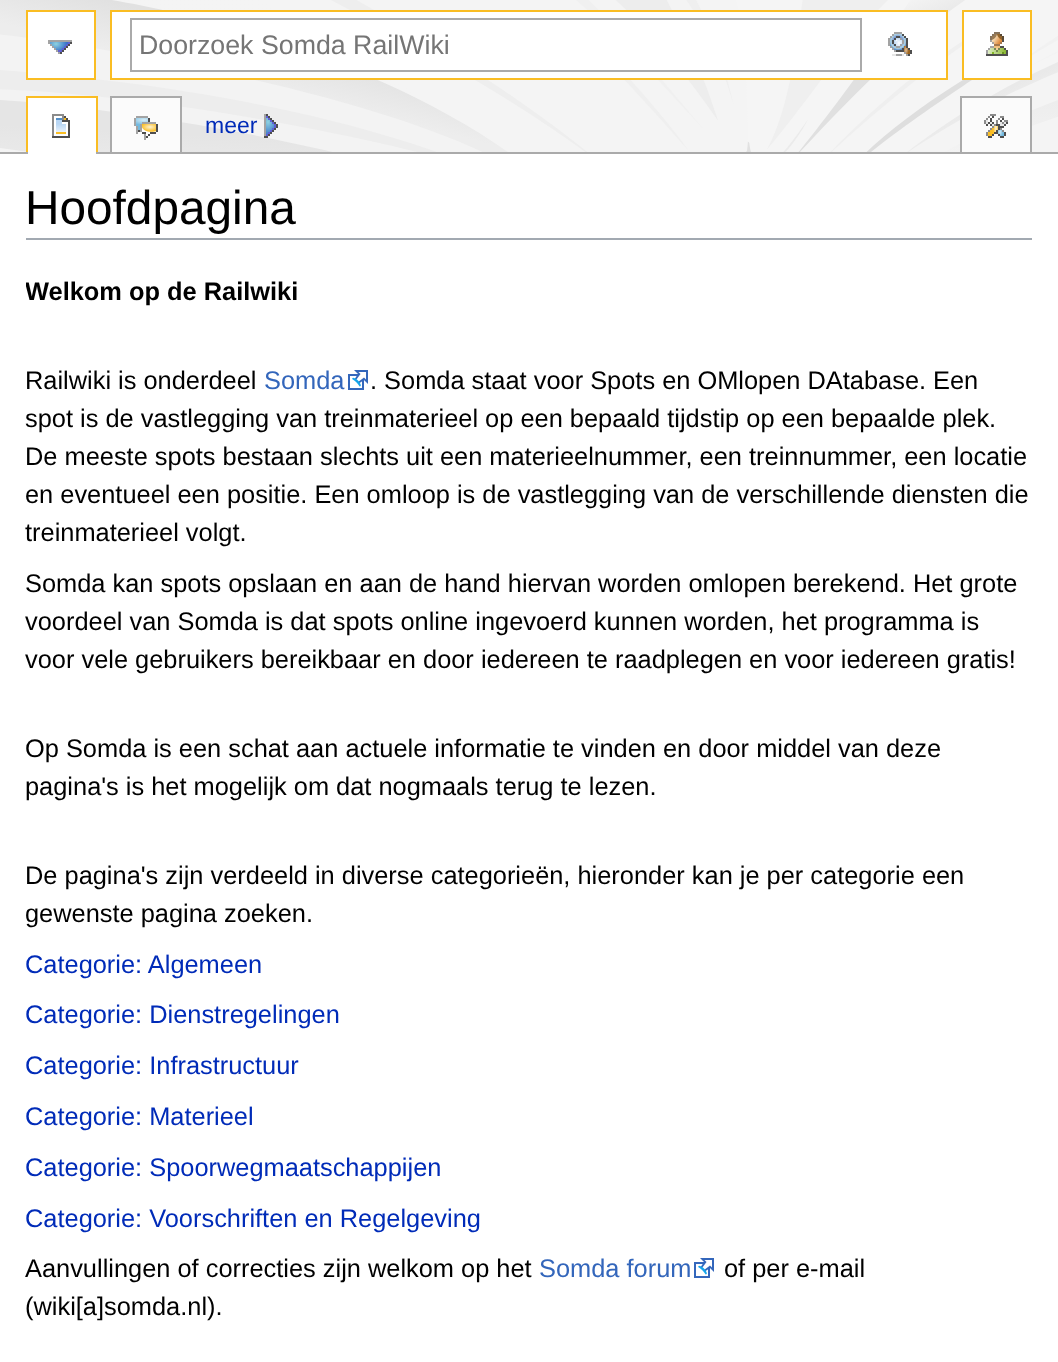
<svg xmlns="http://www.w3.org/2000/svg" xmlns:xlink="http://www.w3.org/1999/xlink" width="1058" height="1362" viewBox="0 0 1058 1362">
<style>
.cls-1{font:26.75px Liberation Sans;fill:#757575}
.cls-2{font:23px Liberation Sans;fill:#002bb8}
.cls-3{font:47.75px Liberation Sans;fill:#000000}
.cls-4{font:bold 25.4px Liberation Sans;fill:#000000}
.cls-5{font:25.4px Liberation Sans;fill:#000000}
.cls-6{font:25.4px Liberation Sans;fill:#3366bb}
.cls-7{font:25.4px Liberation Sans;fill:#002bb8}
</style>
<defs>
<clipPath id="clip1"><rect x="26" y="244" width="1006" height="1096"/></clipPath>
</defs>
<rect width="100%" height="100%" fill="#ffffff"/>
<image xlink:href="image0.png" x="0" y="0" width="1058" height="152"/>
<rect fill="#ffffff" x="28" y="12" width="66" height="66"/>
<image xlink:href="image1.png" x="48" y="40" width="24" height="14"/>
<rect fill="none" stroke="#fabd23" stroke-width="2" x="27" y="11" width="68" height="68"/>
<rect fill="#ffffff" stroke="#fabd23" stroke-width="2" x="111" y="11" width="836" height="68"/>
<rect fill="none" stroke="#aaaaaa" stroke-width="2" x="131" y="19" width="730" height="52"/>
<image xlink:href="image2.png" x="888" y="32" width="24" height="24"/>
<rect fill="#ffffff" x="964" y="12" width="66" height="66"/>
<image xlink:href="image3.png" x="986" y="32" width="22" height="24"/>
<rect fill="none" stroke="#fabd23" stroke-width="2" x="963" y="11" width="68" height="68"/>
<rect fill="#fabd23" x="26" y="96" width="72" height="2"/>
<rect fill="#fabd23" x="96" y="96" width="2" height="58"/>
<rect fill="#fabd23" x="26" y="96" width="2" height="58"/>
<rect fill="#aaaaaa" x="110" y="96" width="72" height="2"/>
<rect fill="#aaaaaa" x="180" y="96" width="2" height="58"/>
<rect fill="#aaaaaa" x="110" y="96" width="2" height="58"/>
<rect fill="#aaaaaa" x="960" y="96" width="72" height="2"/>
<rect fill="#aaaaaa" x="1030" y="96" width="2" height="58"/>
<rect fill="#aaaaaa" x="960" y="96" width="2" height="58"/>
<rect fill="#aaaaaa" x="0" y="152" width="1058" height="2"/>
<rect fill="#ffffff" x="28" y="98" width="68" height="56"/>
<image xlink:href="image4.png" x="52" y="114" width="18" height="24"/>
<rect fill="#fbfbfb" x="112" y="98" width="68" height="54"/>
<image xlink:href="image5.png" x="134" y="116" width="24" height="24"/>
<image xlink:href="image6.png" x="264" y="114" width="14" height="24"/>
<rect fill="#fbfbfb" x="962" y="98" width="68" height="54"/>
<image xlink:href="image7.png" x="984" y="114" width="24" height="24"/>
<rect fill="#a2a9b1" x="26" y="238" width="1006" height="2"/>
<image xlink:href="image8.png" x="348" y="370" width="20" height="20"/>
<image xlink:href="image8.png" x="694" y="1258" width="20" height="20"/>
<text class="cls-1" x="139" y="54">Doorzoek Somda RailWiki</text>
<text class="cls-2" x="205" y="133">meer</text>
<text class="cls-3" x="25" y="224">Hoofdpagina</text>
<g clip-path="url(#clip1)">
<text class="cls-4" x="25" y="300">Welkom op de Railwiki</text>
</g>
<text class="cls-5" x="25" y="389">Railwiki is onderdeel</text>
<text class="cls-6" x="264" y="389">Somda</text>
<text class="cls-5" x="370" y="389">. Somda staat voor Spots en OMlopen DAtabase.</text>
<text class="cls-5" x="933" y="389">Een</text>
<text class="cls-5"><tspan x="25" y="427">spot is de vastlegging van treinmaterieel op een bepaald tijdstip op een bepaalde plek.</tspan><tspan x="25" y="465">De meeste spots bestaan slechts uit een materieelnummer, een treinnummer, een locatie</tspan><tspan x="25" y="503">en eventueel een positie. Een omloop is de vastlegging van de verschillende diensten die</tspan><tspan x="25" y="541">treinmaterieel volgt.</tspan></text>
<text class="cls-5"><tspan x="25" y="592">Somda kan spots opslaan en aan de hand hiervan worden omlopen berekend. Het grote</tspan><tspan x="25" y="630">voordeel van Somda is dat spots online ingevoerd kunnen worden, het programma is</tspan><tspan x="25" y="668">voor vele gebruikers bereikbaar en door iedereen te raadplegen en voor iedereen gratis!</tspan></text>
<text class="cls-5"><tspan x="25" y="757">Op Somda is een schat aan actuele informatie te vinden en door middel van deze</tspan><tspan x="25" y="795">pagina's is het mogelijk om dat nogmaals terug te lezen.</tspan></text>
<text class="cls-5"><tspan x="25" y="884">De pagina's zijn verdeeld in diverse categorieën, hieronder kan je per categorie een</tspan><tspan x="25" y="922">gewenste pagina zoeken.</tspan></text>
<text class="cls-7"><tspan x="25" y="973">Categorie: Algemeen</tspan><tspan x="25" y="1023">Categorie: Dienstregelingen</tspan></text>
<text class="cls-7" x="25" y="1074">Categorie: Infrastructuur</text>
<text class="cls-7" x="25" y="1125">Categorie: Materieel</text>
<text class="cls-7" x="25" y="1176">Categorie: Spoorwegmaatschappijen</text>
<text class="cls-7" x="25" y="1227">Categorie: Voorschriften en Regelgeving</text>
<text class="cls-5" x="25" y="1277">Aanvullingen of correcties zijn welkom op het</text>
<text class="cls-6" x="539" y="1277">Somda forum</text>
<text class="cls-5" x="724" y="1277">of per e-mail</text>
<text class="cls-5" x="25" y="1315">(wiki[a]somda.nl).</text>
</svg>
